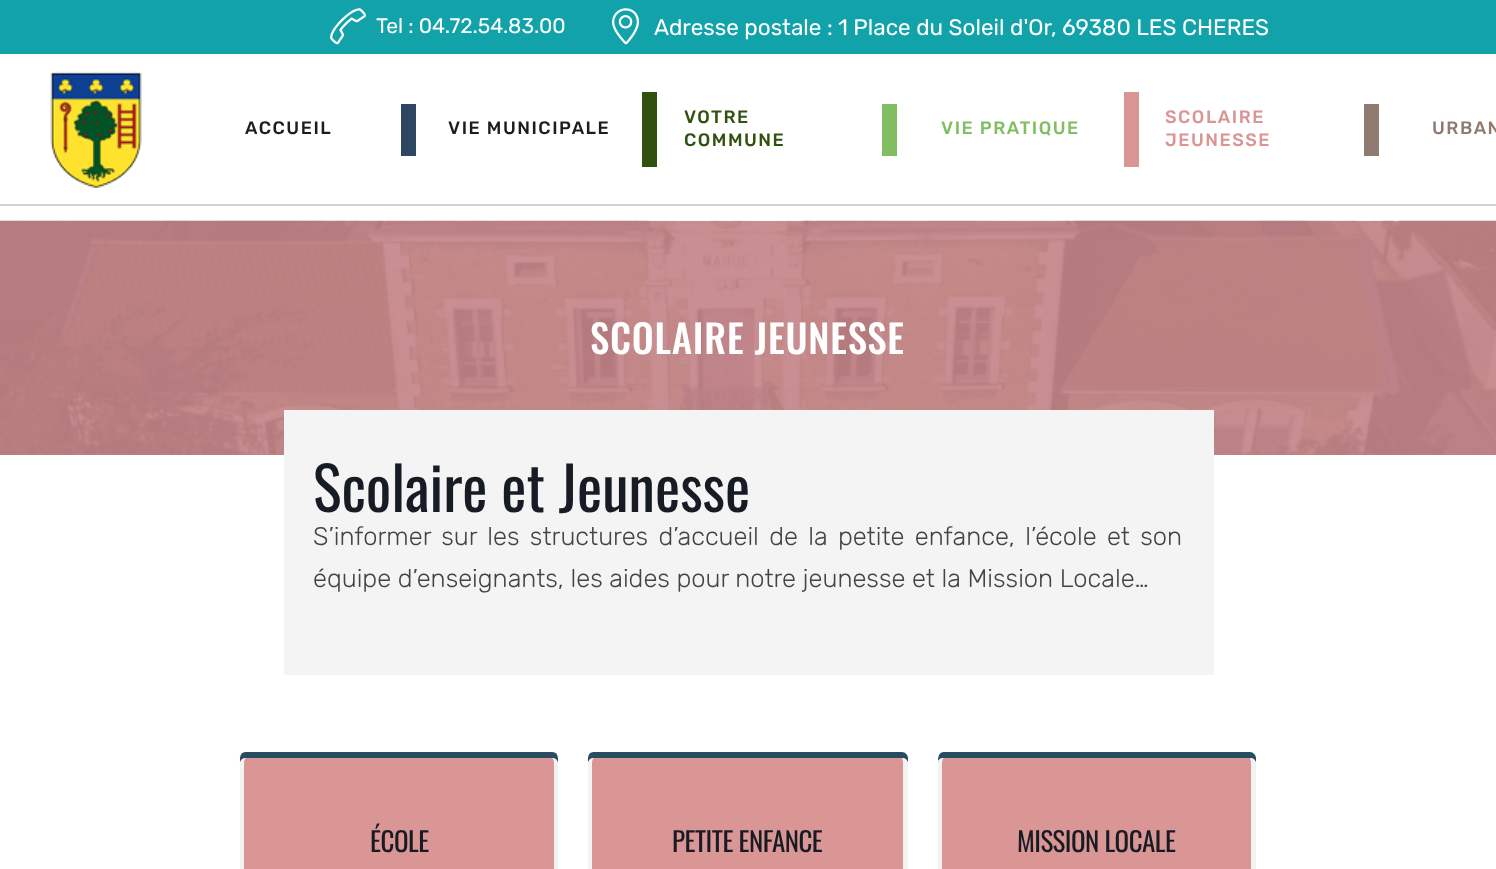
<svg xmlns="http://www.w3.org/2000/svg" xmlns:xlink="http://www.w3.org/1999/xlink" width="1496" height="869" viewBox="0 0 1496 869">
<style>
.cls-1{font:21px Rubik;fill:#ffffff}
.cls-2{font:22.5px Rubik;fill:#ffffff}
.cls-3{font:500 18px Rubik;letter-spacing:1.5px;fill:#1d1d1b}
.cls-4{font:500 18px Rubik;letter-spacing:1.5px;fill:#31510e}
.cls-5{font:500 18px Rubik;letter-spacing:1.5px;fill:#81be61}
.cls-6{font:500 18px Rubik;letter-spacing:1.5px;fill:#da9595}
.cls-7{font:500 18px Rubik;letter-spacing:1.5px;fill:#8f7b6f}
.cls-8{font:500 39px Oswald;letter-spacing:0.75px;fill:#ffffff}
.cls-9{font:60px Oswald;fill:#171c24}
.cls-10{font:300 25.5px Rubik;fill:#444444}
.cls-11{font:27px Oswald;letter-spacing:-0.5px;fill:#171c24}
</style>
<rect width="100%" height="100%" fill="#ffffff"/>
<rect fill="#d3d3d3" x="0" y="204" width="1496" height="2"/>
<rect fill="#12a3aa" x="0" y="0" width="1496" height="54"/>
<image xlink:href="image0.png" x="330" y="8" width="36" height="37"/>
<image xlink:href="image1.png" x="612" y="8" width="27" height="37"/>
<image xlink:href="image2.png" x="50" y="71" width="92" height="117"/>
<rect fill="#2e4661" x="401" y="104" width="15" height="52"/>
<rect fill="#31510e" x="642" y="92" width="15" height="75"/>
<rect fill="#81be61" x="882" y="104" width="15" height="52"/>
<rect fill="#da9595" x="1124" y="92" width="15" height="75"/>
<rect fill="#8f7b6f" x="1364" y="104" width="15" height="52"/>
<rect fill="#bf8187" x="0" y="221" width="1496" height="234"/>
<image xlink:href="image3.png" x="0" y="220" width="1496" height="235"/>
<rect fill="#f4f4f4" x="284" y="410" width="930" height="265"/>
<path fill="#294b61" d="M246 752C239 752 240 759 240 764C240 760 243 758 246 758H552C555 758 558 760 558 764C558 759 559 752 552 752Z"/>
<rect fill="#da9595" x="240" y="758" width="318" height="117" rx="6"/>
<path fill="#f3f3f3" fill-rule="evenodd" d="M246 758H552C555 758 558 760 558 764V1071C558 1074 555 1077 552 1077H246C243 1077 240 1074 240 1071V764C240 760 243 758 246 758ZM246 758H552C553 758 554 760 554 764V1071C554 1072 553 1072 552 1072H246C245 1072 244 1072 244 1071V764C244 760 245 758 246 758Z"/>
<path fill="#294b61" d="M594 752C587 752 588 759 588 764C588 760 591 758 594 758H902C905 758 908 760 908 764V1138V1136V758C908 755 905 752 902 752Z"/>
<rect fill="#da9595" x="588" y="758" width="320" height="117" rx="6"/>
<path fill="#f3f3f3" fill-rule="evenodd" d="M594 758H902C905 758 908 760 908 764V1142C908 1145 905 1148 902 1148H594C591 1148 588 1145 588 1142V764C588 760 591 758 594 758ZM594 758H902C902 758 903 760 903 764V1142C903 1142 902 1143 902 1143H594C593 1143 592 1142 592 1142V764C592 760 593 758 594 758Z"/>
<path fill="#294b61" d="M944 752C939 752 938 757 938 761C939 759 941 758 944 758H1250C1253 758 1256 760 1256 764V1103V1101V758C1256 755 1253 752 1250 752Z"/>
<rect fill="#da9595" x="938" y="758" width="318" height="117" rx="6"/>
<path fill="#f3f3f3" fill-rule="evenodd" d="M944 758H1250C1253 758 1256 760 1256 764V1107C1256 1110 1253 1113 1250 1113H944C940 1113 938 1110 938 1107V764C938 760 940 758 944 758ZM944 758H1250C1250 758 1251 760 1251 764V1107C1251 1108 1250 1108 1250 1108H944C943 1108 942 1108 942 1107V764C942 760 943 758 944 758Z"/>
<text class="cls-1" x="376" y="33">Tel : 04.72.54.83.00</text>
<text class="cls-2" x="654" y="35">Adresse postale : 1 Place du Soleil d'Or, 69380 LES CHERES</text>
<text class="cls-3" x="245" y="134">ACCUEIL</text>
<text class="cls-3" x="448" y="134">VIE MUNICIPALE</text>
<text class="cls-4"><tspan x="684" y="123">VOTRE</tspan><tspan x="684" y="146">COMMUNE</tspan></text>
<text class="cls-5" x="941" y="134">VIE PRATIQUE</text>
<text class="cls-6"><tspan x="1165" y="123">SCOLAIRE</tspan><tspan x="1165" y="146">JEUNESSE</tspan></text>
<text class="cls-7" x="1432" y="134">URBAN</text>
<text class="cls-8" x="590" y="354">SCOLAIRE JEUNESSE</text>
<text class="cls-9" x="313" y="512">Scolaire et Jeunesse</text>
<text class="cls-10"><tspan x="313" y="545" word-spacing="3.75">S’informer sur les structures d’accueil de la petite enfance, l’école et son</tspan><tspan x="313" y="587">équipe d’enseignants, les aides pour notre jeunesse et la Mission Locale…</tspan></text>
<text class="cls-11" x="370" y="852">ÉCOLE</text>
<text class="cls-11" x="672" y="852">PETITE ENFANCE</text>
<text class="cls-11" x="1017" y="852">MISSION LOCALE</text>
</svg>
